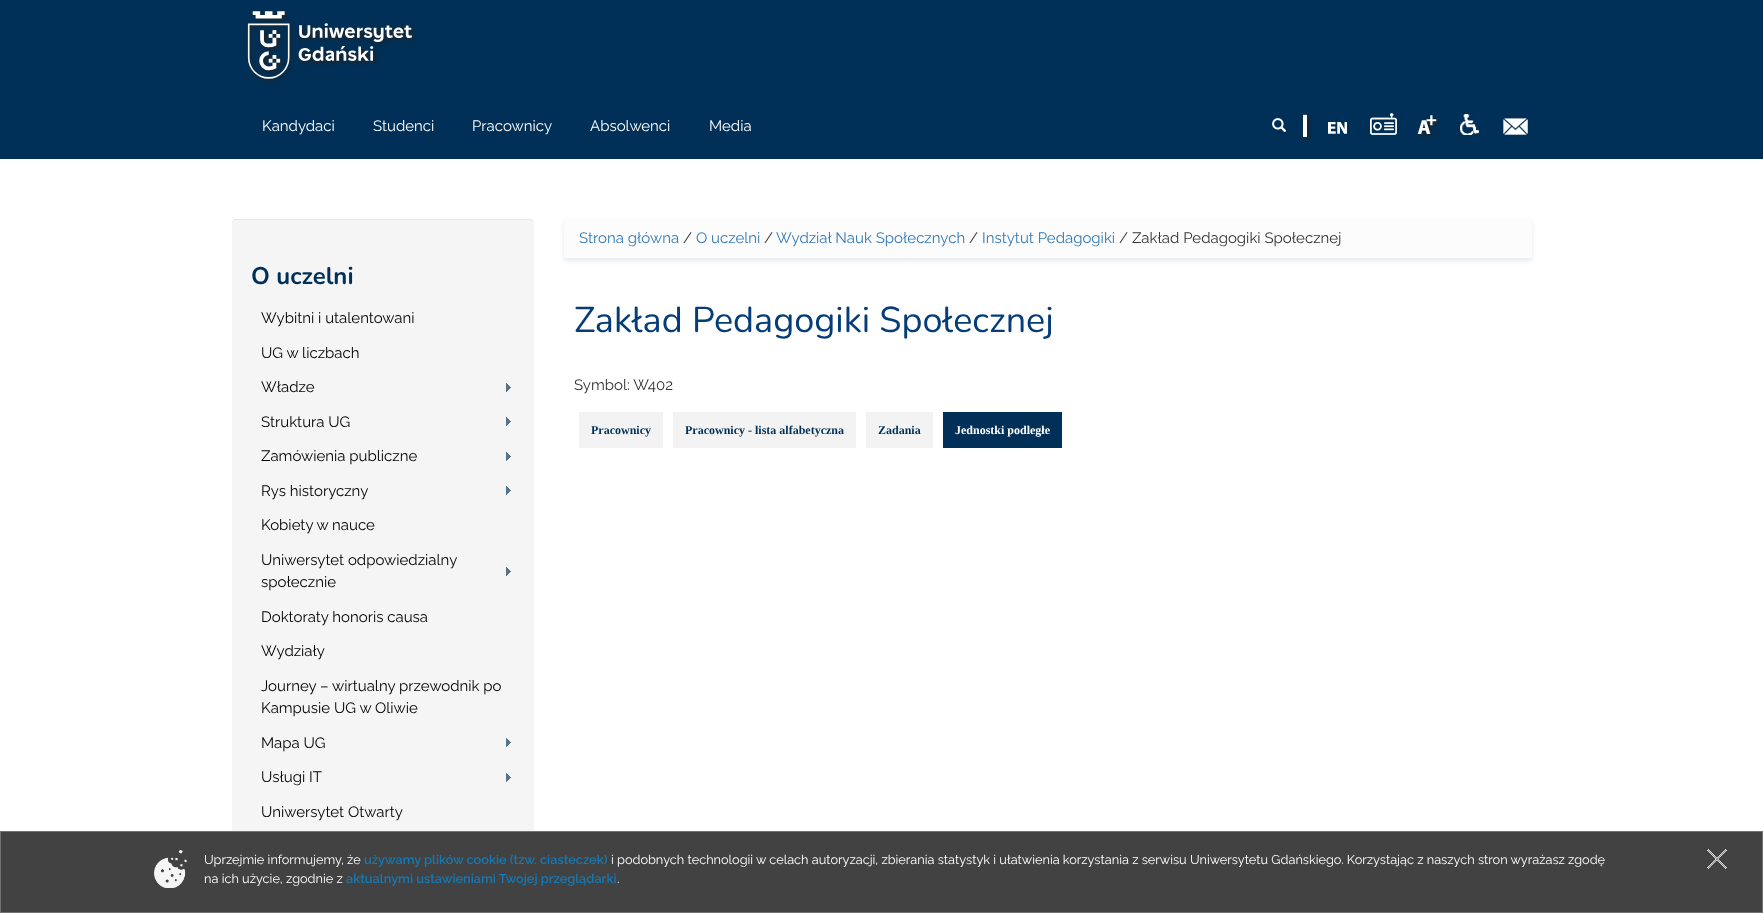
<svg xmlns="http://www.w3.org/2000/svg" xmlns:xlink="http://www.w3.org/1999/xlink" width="1763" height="913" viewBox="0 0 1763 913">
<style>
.cls-1{font:15px Raleway;fill:#ffffff}
.cls-2{font:bold 24px Nunito;fill:#003057}
.cls-3{font:15px Raleway;fill:#000000}
.cls-4{font:15px Raleway;fill:#337ab7}
.cls-5{font:15px Raleway;fill:#333333}
.cls-6{font:36px Nunito;fill:#053d78}
.cls-7{font:bold 12px Liberation Serif;fill:#003057}
.cls-8{font:bold 12px Liberation Serif;fill:#ffffff}
.cls-9{font:12.75px Raleway;fill:#ffffff}
.cls-10{font:600 12.75px Raleway;fill:#1679b4}
</style>
<rect width="100%" height="100%" fill="#ffffff"/>
<rect fill="#003057" x="0" y="0" width="1763" height="159"/>
<image xlink:href="image0.png" x="247" y="10" width="169" height="74"/>
<image xlink:href="image1.png" x="1272" y="118" width="15" height="14"/>
<image xlink:href="image2.png" x="1302" y="114" width="10" height="27"/>
<image xlink:href="image3.png" x="1328" y="122" width="19" height="12"/>
<image xlink:href="image4.png" x="1370" y="113" width="27" height="22"/>
<image xlink:href="image5.png" x="1417" y="115" width="22" height="23"/>
<image xlink:href="image6.png" x="1460" y="114" width="19" height="21"/>
<image xlink:href="image7.png" x="1503" y="118" width="25" height="17"/>
<rect fill="#f5f5f5" x="232" y="219" width="302" height="629" rx="4"/>
<path fill="#000000" fill-opacity="0.05" d="M236 220H530C532 220 534 222 534 224C534 221 533 219 530 219H236C233 219 232 221 232 224C232 222 234 220 236 220Z"/>
<image xlink:href="image8.png" x="506" y="383" width="5" height="9"/>
<image xlink:href="image8.png" x="506" y="417" width="5" height="9"/>
<image xlink:href="image8.png" x="506" y="452" width="5" height="9"/>
<image xlink:href="image8.png" x="506" y="486" width="5" height="9"/>
<image xlink:href="image8.png" x="506" y="567" width="5" height="9"/>
<image xlink:href="image8.png" x="506" y="738" width="5" height="9"/>
<image xlink:href="image8.png" x="506" y="773" width="5" height="9"/>
<rect fill="#002f57" fill-opacity="0.1" filter="blur(2.5px)" x="564" y="222" width="968" height="39"/>
<rect fill="#fcfcfc" x="564" y="220" width="968" height="38"/>
<rect fill="#f3f3f3" x="579" y="412" width="84" height="36"/>
<rect fill="#f3f3f3" x="673" y="412" width="183" height="36"/>
<rect fill="#f3f3f3" x="866" y="412" width="67" height="36"/>
<rect fill="#003057" x="943" y="412" width="119" height="36"/>
<rect fill="#383838" fill-opacity="0.95" stroke="#727272" x="0.5" y="831.5" width="1762" height="81"/>
<image xlink:href="image9.png" x="154" y="850" width="33" height="38"/>
<image xlink:href="image10.png" x="1707" y="849" width="20" height="20"/>
<text class="cls-1" x="262" y="131">Kandydaci</text>
<text class="cls-1" x="373" y="131">Studenci</text>
<text class="cls-1" x="472" y="131">Pracownicy</text>
<text class="cls-1" x="590" y="131">Absolwenci</text>
<text class="cls-1" x="709" y="131">Media</text>
<text class="cls-2" x="251" y="284">O uczelni</text>
<text class="cls-3" x="261" y="323">Wybitni i utalentowani</text>
<text class="cls-3" x="261" y="358">UG w liczbach</text>
<text class="cls-3" x="261" y="392">Władze</text>
<text class="cls-3" x="261" y="427">Struktura UG</text>
<text class="cls-3" x="261" y="461">Zamówienia publiczne</text>
<text class="cls-3" x="261" y="496">Rys historyczny</text>
<text class="cls-3" x="261" y="530">Kobiety w nauce</text>
<text class="cls-3"><tspan x="261" y="565">Uniwersytet odpowiedzialny</tspan><tspan x="261" y="587">społecznie</tspan></text>
<text class="cls-3" x="261" y="622">Doktoraty honoris causa</text>
<text class="cls-3" x="261" y="656">Wydziały</text>
<text class="cls-3"><tspan x="261" y="691">Journey – wirtualny przewodnik po</tspan><tspan x="261" y="713">Kampusie UG w Oliwie</tspan></text>
<text class="cls-3" x="261" y="748">Mapa UG</text>
<text class="cls-3" x="261" y="782">Usługi IT</text>
<text class="cls-3" x="261" y="817">Uniwersytet Otwarty</text>
<text class="cls-4" x="579" y="243">Strona główna</text>
<text class="cls-5" x="683" y="243">/</text>
<text class="cls-4" x="696" y="243">O uczelni</text>
<text class="cls-5" x="764" y="243">/</text>
<text class="cls-4" x="776" y="243">Wydział Nauk Społecznych</text>
<text class="cls-5" x="969" y="243">/</text>
<text class="cls-4" x="982" y="243">Instytut Pedagogiki</text>
<text class="cls-5" x="1119" y="243">/ Zakład Pedagogiki Społecznej</text>
<text class="cls-6" x="574" y="332">Zakład Pedagogiki Społecznej</text>
<text class="cls-5" x="574" y="390">Symbol: W402</text>
<text class="cls-7" x="591" y="434">Pracownicy</text>
<text class="cls-7" x="685" y="434">Pracownicy - lista alfabetyczna</text>
<text class="cls-7" x="878" y="434">Zadania</text>
<text class="cls-8" x="955" y="434">Jednostki podległe</text>
<text class="cls-9" x="204" y="864">Uprzejmie informujemy, że</text>
<text class="cls-10" x="364" y="864">używamy plików cookie (tzw. ciasteczek)</text>
<text class="cls-9" x="611" y="864">i podobnych technologii w celach autoryzacji, zbierania statystyk i ułatwienia korzystania z serwisu Uniwersytetu Gdańskiego. Korzystając z naszych stron wyrażasz zgodę</text>
<text class="cls-9" x="204" y="883">na ich użycie, zgodnie z</text>
<text class="cls-10" x="346" y="883">aktualnymi ustawieniami Twojej przeglądarki</text>
<text class="cls-9" x="617" y="883">.</text>
</svg>
